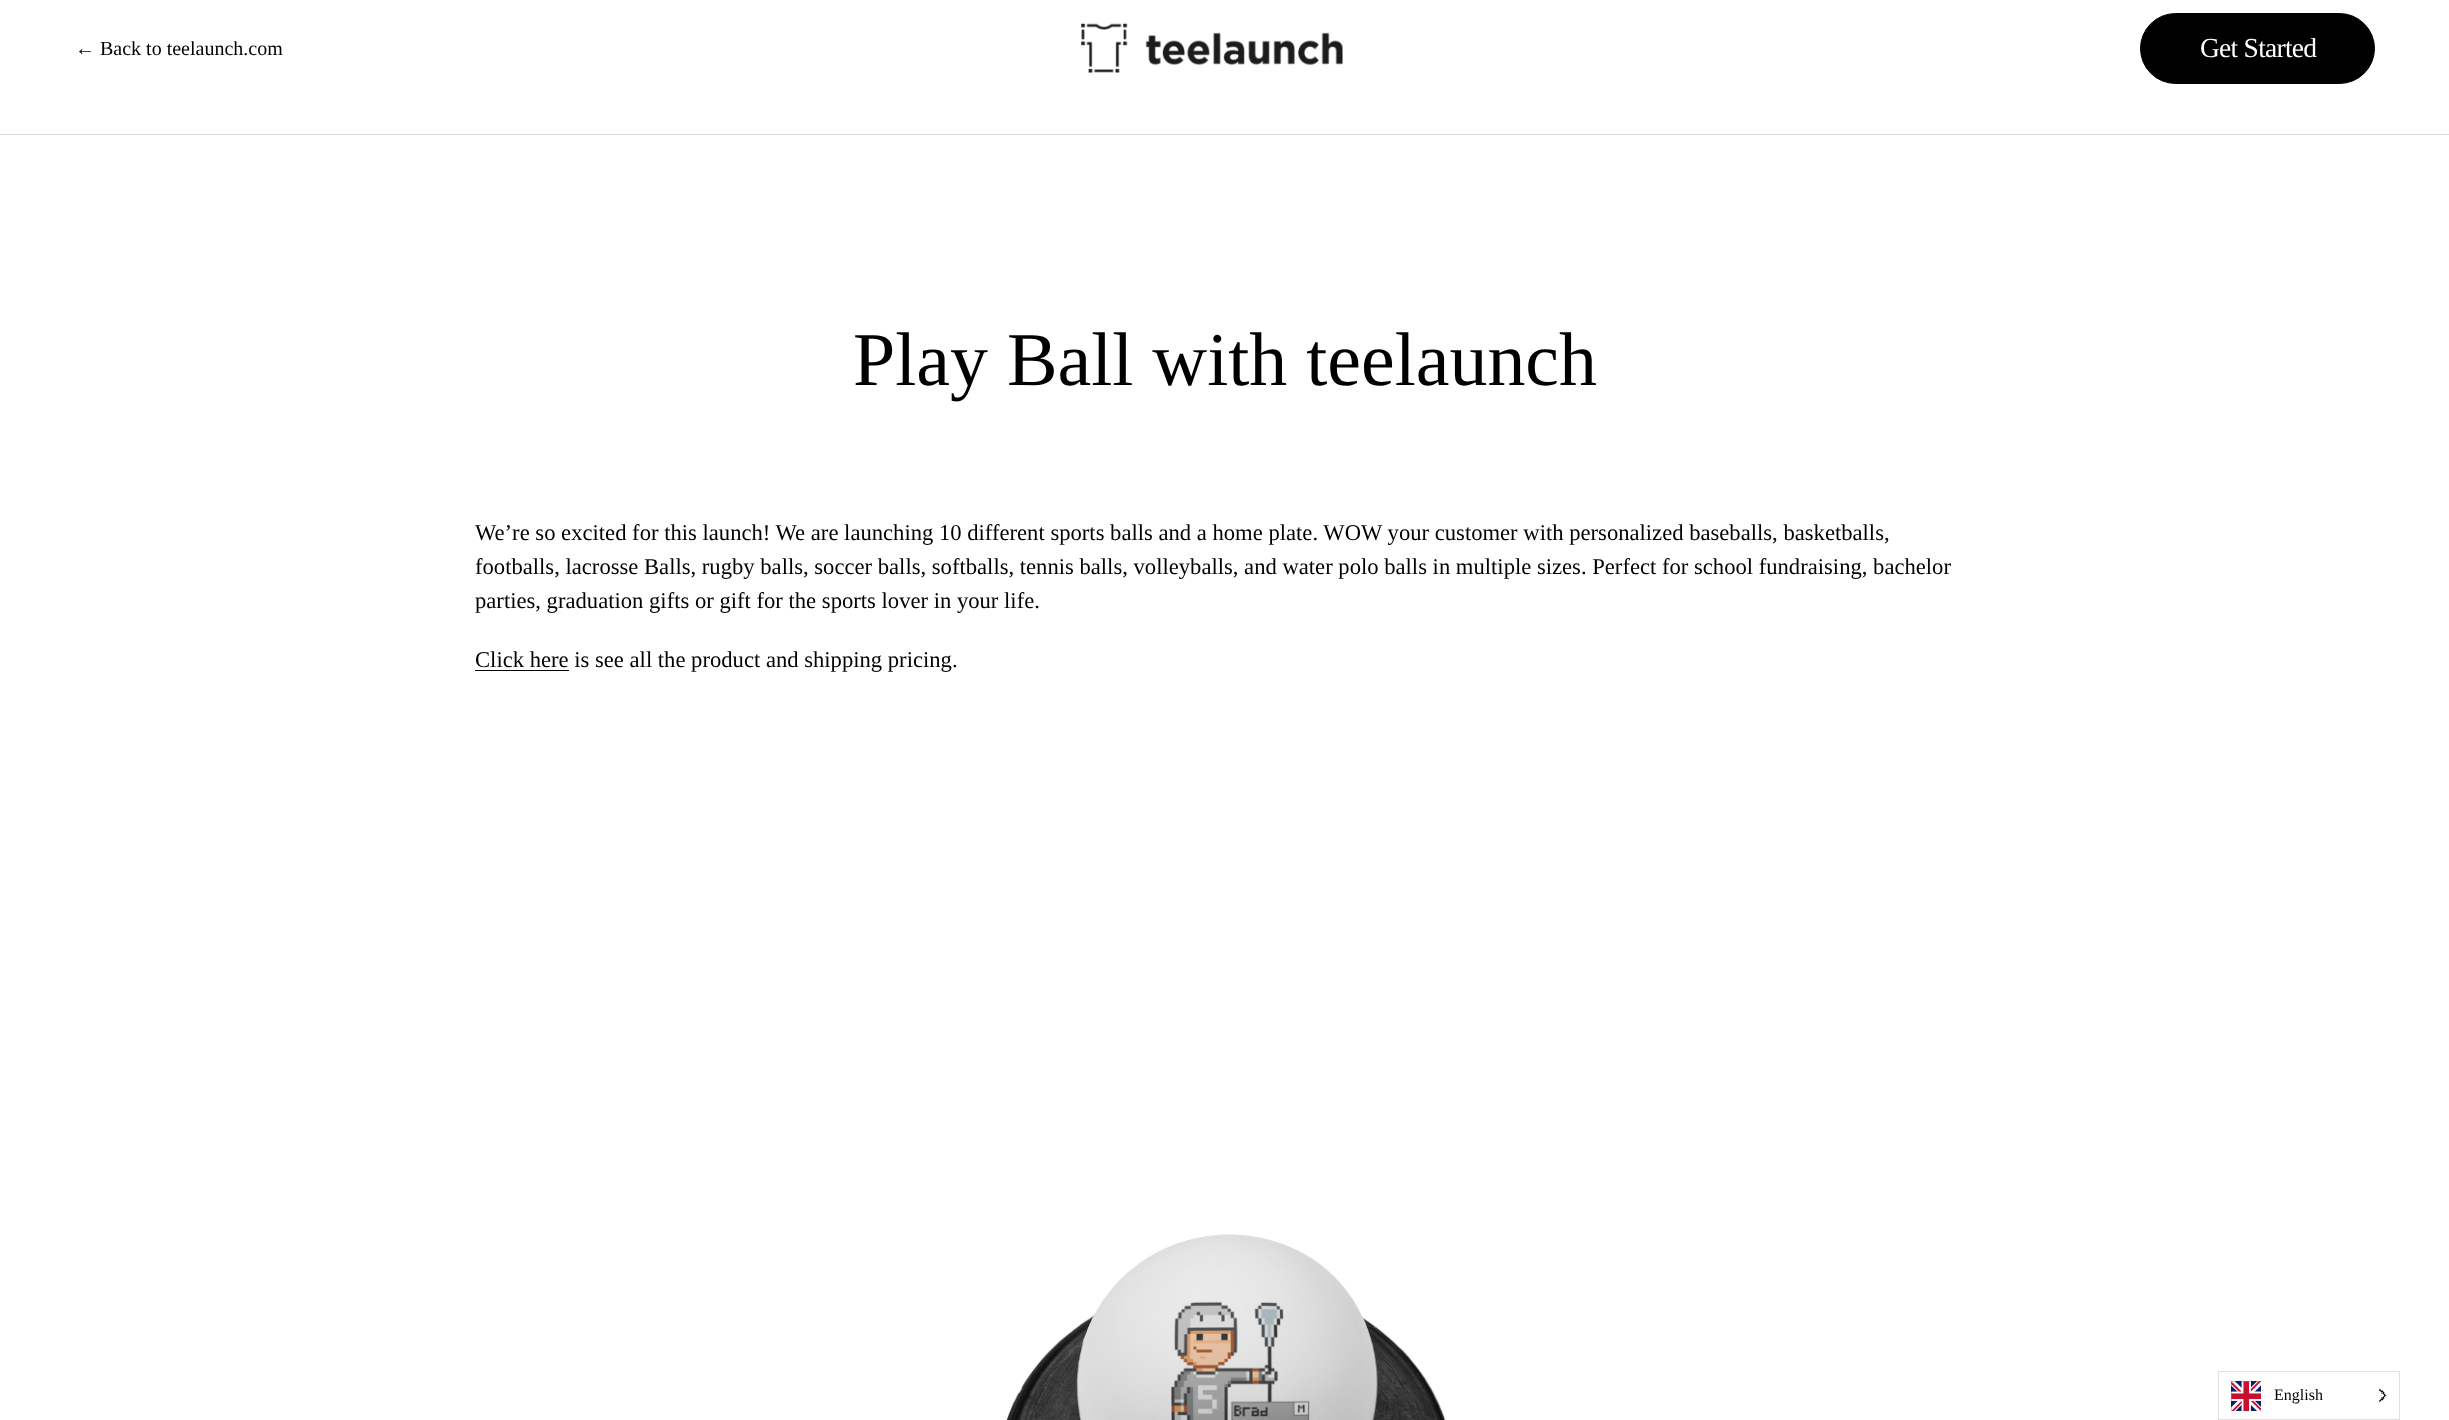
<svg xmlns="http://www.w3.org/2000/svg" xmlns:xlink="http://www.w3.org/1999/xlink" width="2449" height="1420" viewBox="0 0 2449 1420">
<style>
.cls-1{font:20px Liberation Serif;fill:#000000}
.cls-2{font:27.5px Liberation Serif;letter-spacing:-0.75px;fill:#ffffff}
.cls-3{font:75.9px Liberation Serif;fill:#000000}
.cls-4{font:22.63px Liberation Serif;fill:#000000}
.cls-5{font:16px Liberation Serif;fill:#000000}
</style>
<rect width="100%" height="100%" fill="#ffffff"/>
<image xlink:href="image0.png" x="1081" y="23" width="262" height="50"/>
<rect fill="#000000" stroke="#000000" x="2140.5" y="13.5" width="234" height="70" rx="35"/>
<rect fill="#d9d9d9" x="0" y="134" width="2449" height="1"/>
<rect fill="#000000" x="475" y="670" width="94" height="1"/>
<image xlink:href="image1.png" x="1006" y="1234" width="440" height="186"/>
<rect fill="none" stroke="#e0e0e0" x="2218.5" y="1371.5" width="181" height="48"/>
<image xlink:href="image2.png" x="2231" y="1381" width="30" height="30"/>
<image xlink:href="image3.png" x="2379" y="1388" width="8" height="14"/>
<text class="cls-1" x="75" y="55">← Back to teelaunch.com</text>
<text class="cls-2" x="2200" y="57">Get Started</text>
<text class="cls-3" x="853" y="385">Play Ball with teelaunch</text>
<text class="cls-4"><tspan x="475" y="540">We’re so excited for this launch! We are launching 10 different sports balls and a home plate. WOW your customer with personalized baseballs, basketballs,</tspan><tspan x="475" y="574">footballs, lacrosse Balls, rugby balls, soccer balls, softballs, tennis balls, volleyballs, and water polo balls in multiple sizes. Perfect for school fundraising, bachelor</tspan><tspan x="475" y="608">parties, graduation gifts or gift for the sports lover in your life.</tspan></text>
<text class="cls-4" x="475" y="667">Click here is see all the product and shipping pricing.</text>
<text class="cls-5" x="2274" y="1400">English</text>
</svg>
